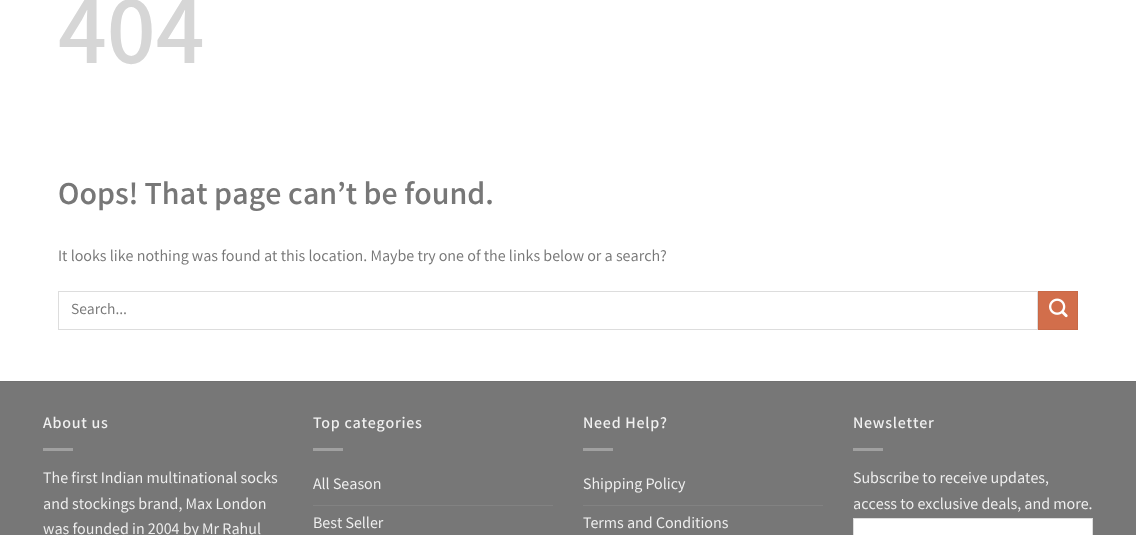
<svg xmlns="http://www.w3.org/2000/svg" xmlns:xlink="http://www.w3.org/1999/xlink" width="1136" height="535" viewBox="0 0 1136 535">
<style>
.cls-1{font:bold 96px Varta;fill:#d6d6d6}
.cls-2{font:bold 32px Varta;fill:#777777}
.cls-3{font:16px Varta;fill:#777777}
.cls-4{font:15.5px Varta;fill:#777777}
.cls-5{font:600 16px Varta;letter-spacing:0.75px;fill:#f1f1f1}
.cls-6{font:16px Varta;fill:#f1f1f1}
</style>
<rect width="100%" height="100%" fill="#ffffff"/>
<rect fill="none" stroke="#dddddd" x="58.5" y="291.5" width="979" height="38"/>
<rect fill="#d26e4b" stroke="#c86947" x="1038.5" y="291.5" width="39" height="38"/>
<image xlink:href="image0.png" x="1049" y="298" width="19" height="20"/>
<rect fill="#777777" x="0" y="382" width="1136" height="153"/>
<rect fill="#717171" x="0" y="381" width="1136" height="1"/>
<rect fill="#a0a0a0" x="43" y="448" width="30" height="3"/>
<rect fill="#a0a0a0" x="313" y="448" width="30" height="3"/>
<rect fill="#828282" x="313" y="505" width="240" height="1"/>
<rect fill="#a0a0a0" x="583" y="448" width="30" height="3"/>
<rect fill="#828282" x="583" y="505" width="240" height="1"/>
<rect fill="#a0a0a0" x="853" y="448" width="30" height="3"/>
<rect fill="#ffffff" stroke="#dddddd" x="853.5" y="518.5" width="239" height="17"/>
<text class="cls-1" x="58" y="63">404</text>
<text class="cls-2" x="58" y="204">Oops! That page can’t be found.</text>
<text class="cls-3" x="58" y="261">It looks like nothing was found at this location. Maybe try one of the links below or a search?</text>
<text class="cls-4" x="71" y="314">Search…</text>
<text class="cls-5" x="43" y="428">About us</text>
<text class="cls-6"><tspan x="43" y="483">The first Indian multinational socks</tspan><tspan x="43" y="509">and stockings brand, Max London</tspan><tspan x="43" y="534">was founded in 2004 by Mr Rahul</tspan></text>
<text class="cls-5" x="313" y="428">Top categories</text>
<text class="cls-6" x="313" y="489">All Season</text>
<text class="cls-6" x="313" y="528">Best Seller</text>
<text class="cls-5" x="583" y="428">Need Help?</text>
<text class="cls-6" x="583" y="489">Shipping Policy</text>
<text class="cls-6" x="583" y="528">Terms and Conditions</text>
<text class="cls-5" x="853" y="428">Newsletter</text>
<text class="cls-6"><tspan x="853" y="483">Subscribe to receive updates,</tspan><tspan x="853" y="509">access to exclusive deals, and more.</tspan></text>
</svg>
